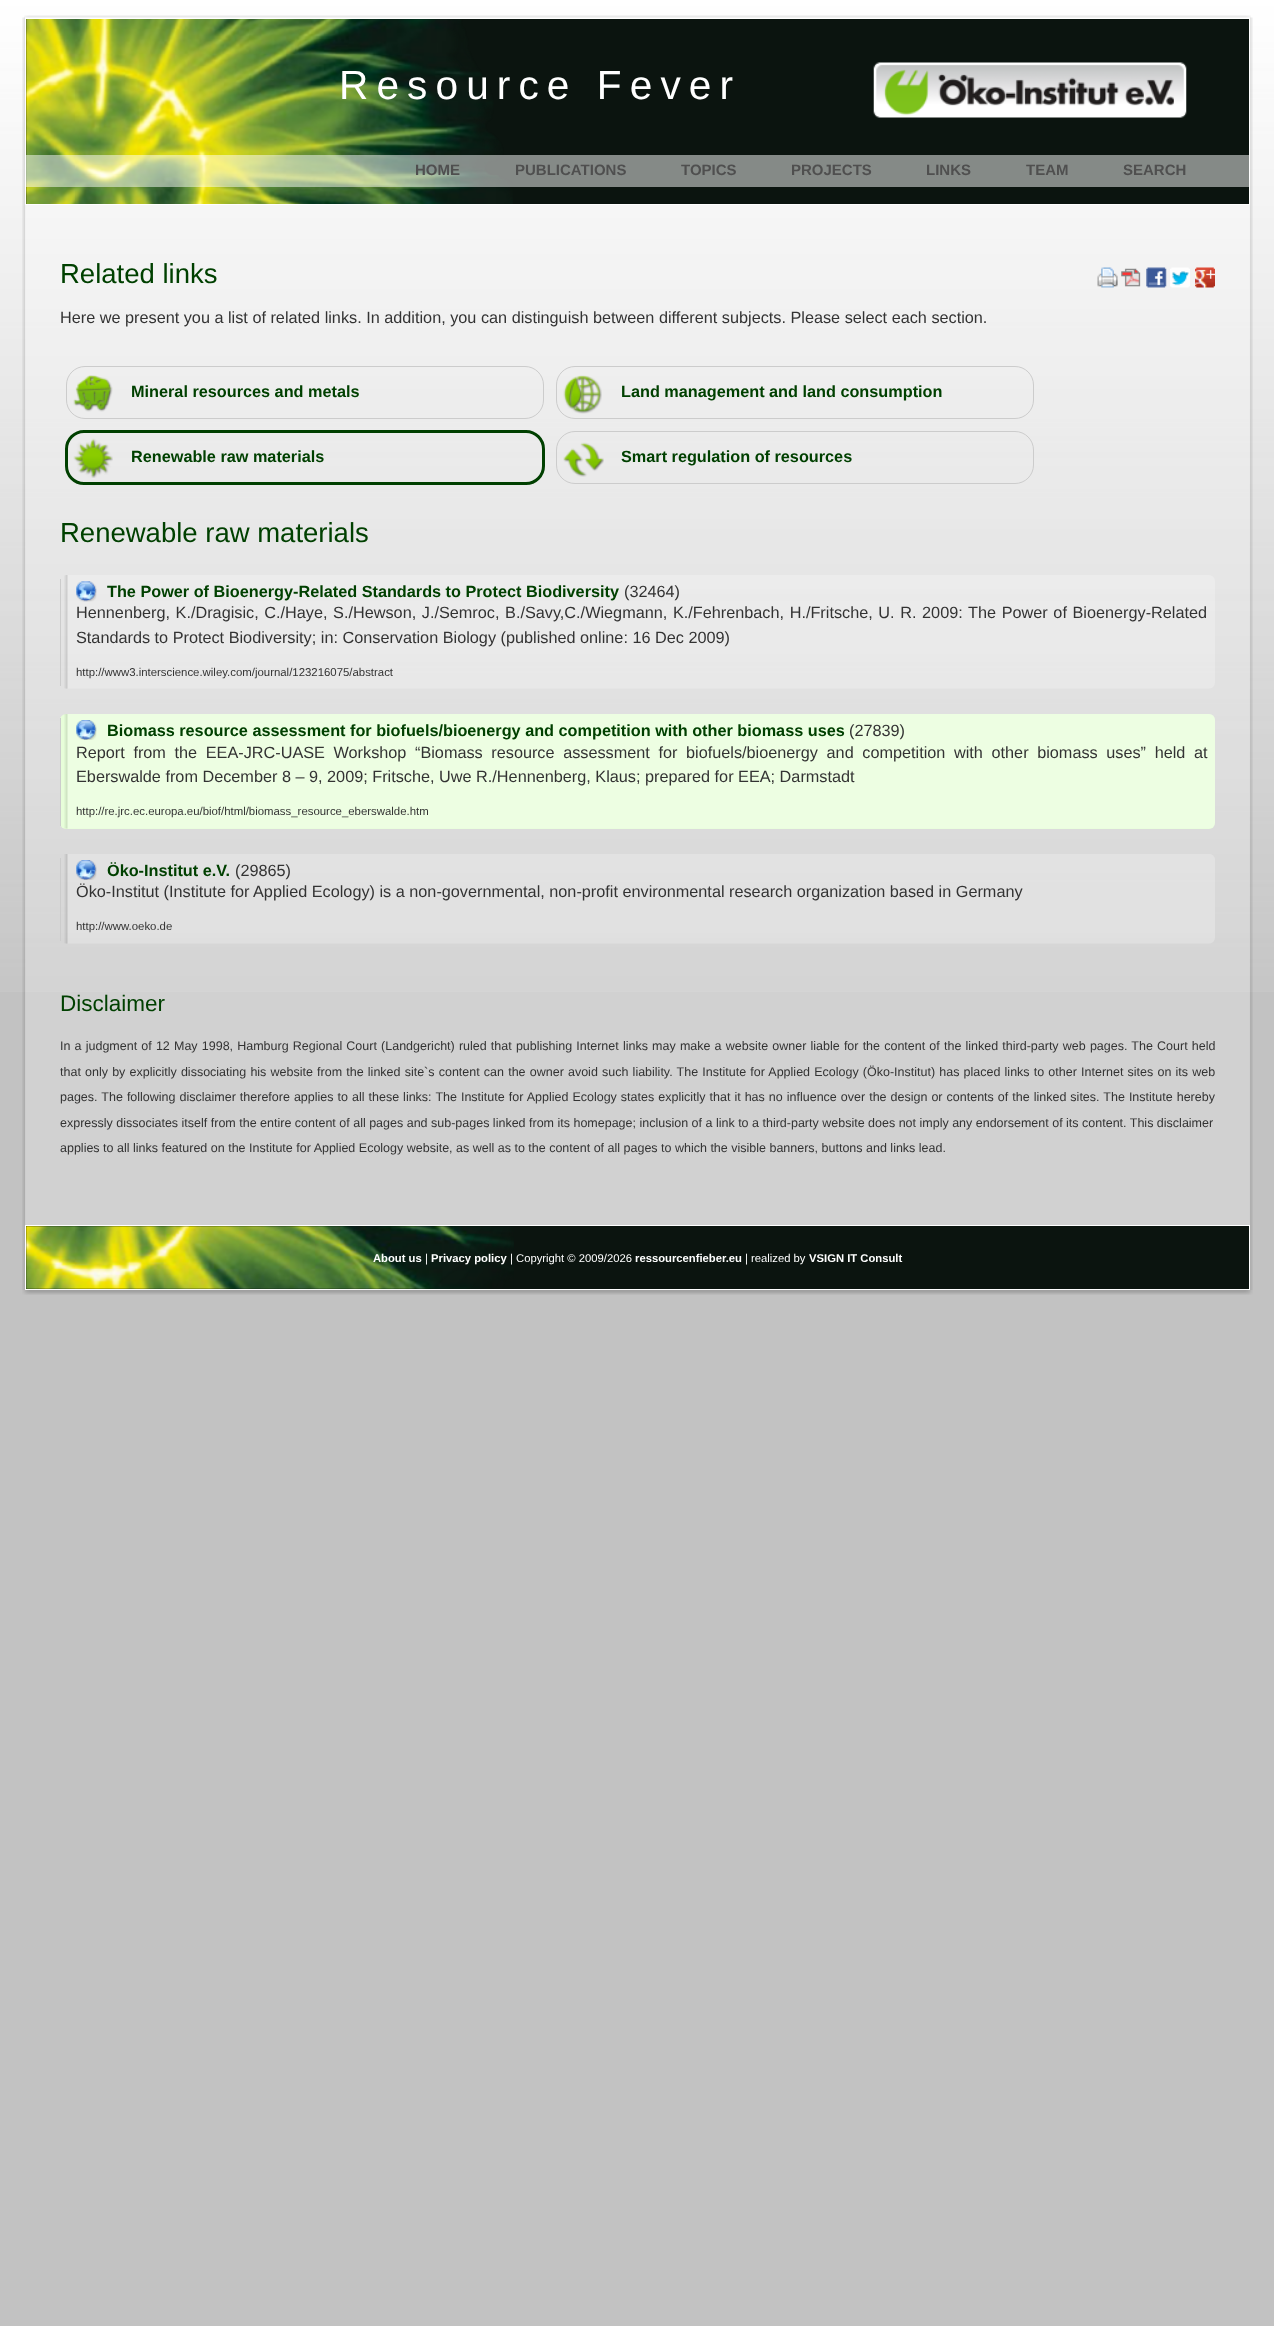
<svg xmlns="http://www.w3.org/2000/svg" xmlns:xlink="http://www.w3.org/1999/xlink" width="1274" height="2326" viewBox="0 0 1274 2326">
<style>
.cls-1{font:40.6px Liberation Sans;letter-spacing:8.1px;fill:#ffffff}
.cls-2{font:bold 15px Liberation Sans;fill:#4f4f4f}
.cls-3{font:27.5px Liberation Sans;fill:#004000}
.cls-4{font:16.25px Liberation Sans;fill:#333333}
.cls-5{font:bold 16.25px Liberation Sans;fill:#004000}
.cls-6{font:11.4px Liberation Sans;fill:#333333}
.cls-7{font:22.5px Liberation Sans;fill:#004000}
.cls-8{font:12.5px Liberation Sans;fill:#333333}
.cls-9{font:bold 11.25px Liberation Sans;fill:#ffffff}
.cls-10{font:11.25px Liberation Sans;fill:#ffffff}
</style>
<rect width="100%" height="100%" fill="#c2c2c2"/>
<image xlink:href="image0.png" x="0" y="0" width="1274" height="992"/>
<image xlink:href="image1.png" x="24" y="15" width="1227" height="3"/>
<image xlink:href="image2.png" x="22" y="17" width="1231" height="1273"/>
<rect fill="#0b140f" x="26" y="19" width="1223" height="185"/>
<image xlink:href="image3.png" x="26" y="19" width="487" height="185"/>
<rect fill="none" stroke="#ffffff" x="25.5" y="18.5" width="1224" height="186"/>
<image xlink:href="image4.png" x="873" y="62" width="314" height="56"/>
<rect fill="#ffffff" fill-opacity="0.5" x="26" y="155" width="1223" height="32"/>
<image xlink:href="image5.png" x="1097" y="267" width="21" height="21"/>
<image xlink:href="image6.png" x="1121" y="268" width="20" height="19"/>
<image xlink:href="image7.png" x="1146" y="267" width="21" height="21"/>
<image xlink:href="image8.png" x="1170" y="267" width="20" height="21"/>
<image xlink:href="image9.png" x="1195" y="267" width="20" height="21"/>
<rect fill="none" stroke="#cccccc" x="66.5" y="366.5" width="477" height="52" rx="18.5"/>
<image xlink:href="image10.png" x="73" y="375" width="40" height="37"/>
<rect fill="none" stroke="#cccccc" x="556.5" y="366.5" width="477" height="52" rx="18.5"/>
<image xlink:href="image11.png" x="563" y="375" width="39" height="39"/>
<rect fill="none" stroke="#004000" stroke-width="3" x="66.5" y="431.5" width="477" height="52" rx="17.5"/>
<image xlink:href="image12.png" x="73" y="438" width="40" height="40"/>
<rect fill="none" stroke="#cccccc" x="556.5" y="431.5" width="477" height="52" rx="18.5"/>
<image xlink:href="image13.png" x="563" y="442" width="41" height="35"/>
<image xlink:href="image14.png" x="64" y="575" width="1151" height="114"/>
<rect fill="#cccccc" x="60" y="579" width="1" height="107"/>
<image xlink:href="image15.png" x="76" y="581" width="21" height="21"/>
<rect fill="#e7fed9" x="60" y="714" width="1155" height="115" rx="6"/>
<image xlink:href="image16.png" x="64" y="714" width="1151" height="115"/>
<rect fill="#cccccc" x="60" y="718" width="1" height="108"/>
<image xlink:href="image17.png" x="76" y="720" width="21" height="20"/>
<image xlink:href="image18.png" x="64" y="854" width="1151" height="90"/>
<rect fill="#cccccc" x="60" y="858" width="1" height="83"/>
<image xlink:href="image19.png" x="76" y="860" width="21" height="20"/>
<rect fill="#0b140f" x="26" y="1226" width="1223" height="63"/>
<image xlink:href="image20.png" x="26" y="1226" width="488" height="63"/>
<rect fill="none" stroke="#ffffff" x="25.5" y="1225.5" width="1224" height="64"/>
<image xlink:href="image21.png" x="22" y="1290" width="1231" height="5"/>
<text class="cls-1" x="339" y="99">Resource Fever</text>
<text class="cls-2" x="415" y="175">HOME</text>
<text class="cls-2" x="515" y="175">PUBLICATIONS</text>
<text class="cls-2" x="681" y="175">TOPICS</text>
<text class="cls-2" x="791" y="175">PROJECTS</text>
<text class="cls-2" x="926" y="175">LINKS</text>
<text class="cls-2" x="1026" y="175">TEAM</text>
<text class="cls-2" x="1123" y="175">SEARCH</text>
<text class="cls-3" x="60" y="283">Related links</text>
<text class="cls-4" x="60" y="323">Here we present you a list of related links. In addition, you can distinguish between different subjects. Please select each section.</text>
<text class="cls-5" x="131" y="397">Mineral resources and metals</text>
<text class="cls-5" x="621" y="397">Land management and land consumption</text>
<text class="cls-5" x="131" y="462">Renewable raw materials</text>
<text class="cls-5" x="621" y="462">Smart regulation of resources</text>
<text class="cls-3" x="60" y="542">Renewable raw materials</text>
<text class="cls-5" x="107" y="597">The Power of Bioenergy-Related Standards to Protect Biodiversity</text>
<text class="cls-4" x="624" y="597">(32464)</text>
<text class="cls-4"><tspan x="76" y="618" word-spacing="1.1">Hennenberg, K./Dragisic, C./Haye, S./Hewson, J./Semroc, B./Savy,C./Wiegmann, K./Fehrenbach, H./Fritsche, U. R. 2009: The Power of Bioenergy-Related</tspan><tspan x="76" y="643">Standards to Protect Biodiversity; in: Conservation Biology (published online: 16 Dec 2009)</tspan></text>
<text class="cls-6" x="76" y="676">http://www3.interscience.wiley.com/journal/123216075/abstract</text>
<text class="cls-5" x="107" y="736">Biomass resource assessment for biofuels/bioenergy and competition with other biomass uses</text>
<text class="cls-4" x="849" y="736">(27839)</text>
<text class="cls-4"><tspan x="76" y="758" word-spacing="4.1">Report from the EEA-JRC-UASE Workshop “Biomass resource assessment for biofuels/bioenergy and competition with other biomass uses” held at</tspan><tspan x="76" y="782">Eberswalde from December 8 – 9, 2009; Fritsche, Uwe R./Hennenberg, Klaus; prepared for EEA; Darmstadt</tspan></text>
<text class="cls-6" x="76" y="815">http://re.jrc.ec.europa.eu/biof/html/biomass_resource_eberswalde.htm</text>
<text class="cls-5" x="107" y="876">Öko-Institut e.V.</text>
<text class="cls-4" x="235" y="876">(29865)</text>
<text class="cls-4" x="76" y="897">Öko-Institut (Institute for Applied Ecology) is a non-governmental, non-profit environmental research organization based in Germany</text>
<text class="cls-6" x="76" y="930">http://www.oeko.de</text>
<text class="cls-7" x="60" y="1011">Disclaimer</text>
<text class="cls-8" x="60" y="1050" word-spacing="0.7">In a judgment of 12 May 1998, Hamburg Regional Court (Landgericht) ruled that publishing Internet links may make a website owner liable for the content of the linked third-party web pages. The Court held</text>
<text class="cls-8" x="60" y="1076" word-spacing="0.7">that only by explicitly dissociating his website from the linked site`s content can the owner avoid such liability. The Institute for Applied Ecology (Öko-Institut) has placed links to other Internet sites on its web</text>
<text class="cls-8" x="60" y="1101" word-spacing="0.55">pages. The following disclaimer therefore applies to all these links: The Institute for Applied Ecology states explicitly that it has no influence over the design or contents of the linked sites. The Institute hereby</text>
<text class="cls-8" x="60" y="1127">expressly dissociates itself from the entire content of all pages and sub-pages linked from its homepage; inclusion of a link to a third-party website does not imply any endorsement of its content. This disclaimer</text>
<text class="cls-8" x="60" y="1152">applies to all links featured on the Institute for Applied Ecology website, as well as to the content of all pages to which the visible banners, buttons and links lead.</text>
<text class="cls-9" x="373" y="1262">About us</text>
<text class="cls-10" x="425" y="1262">|</text>
<text class="cls-9" x="431" y="1262">Privacy policy</text>
<text class="cls-10" x="510" y="1262">| Copyright © 2009/2026</text>
<text class="cls-9" x="635" y="1262">ressourcenfieber.eu</text>
<text class="cls-10" x="745" y="1262">| realized by</text>
<text class="cls-9" x="809" y="1262">VSIGN IT Consult</text>
</svg>
